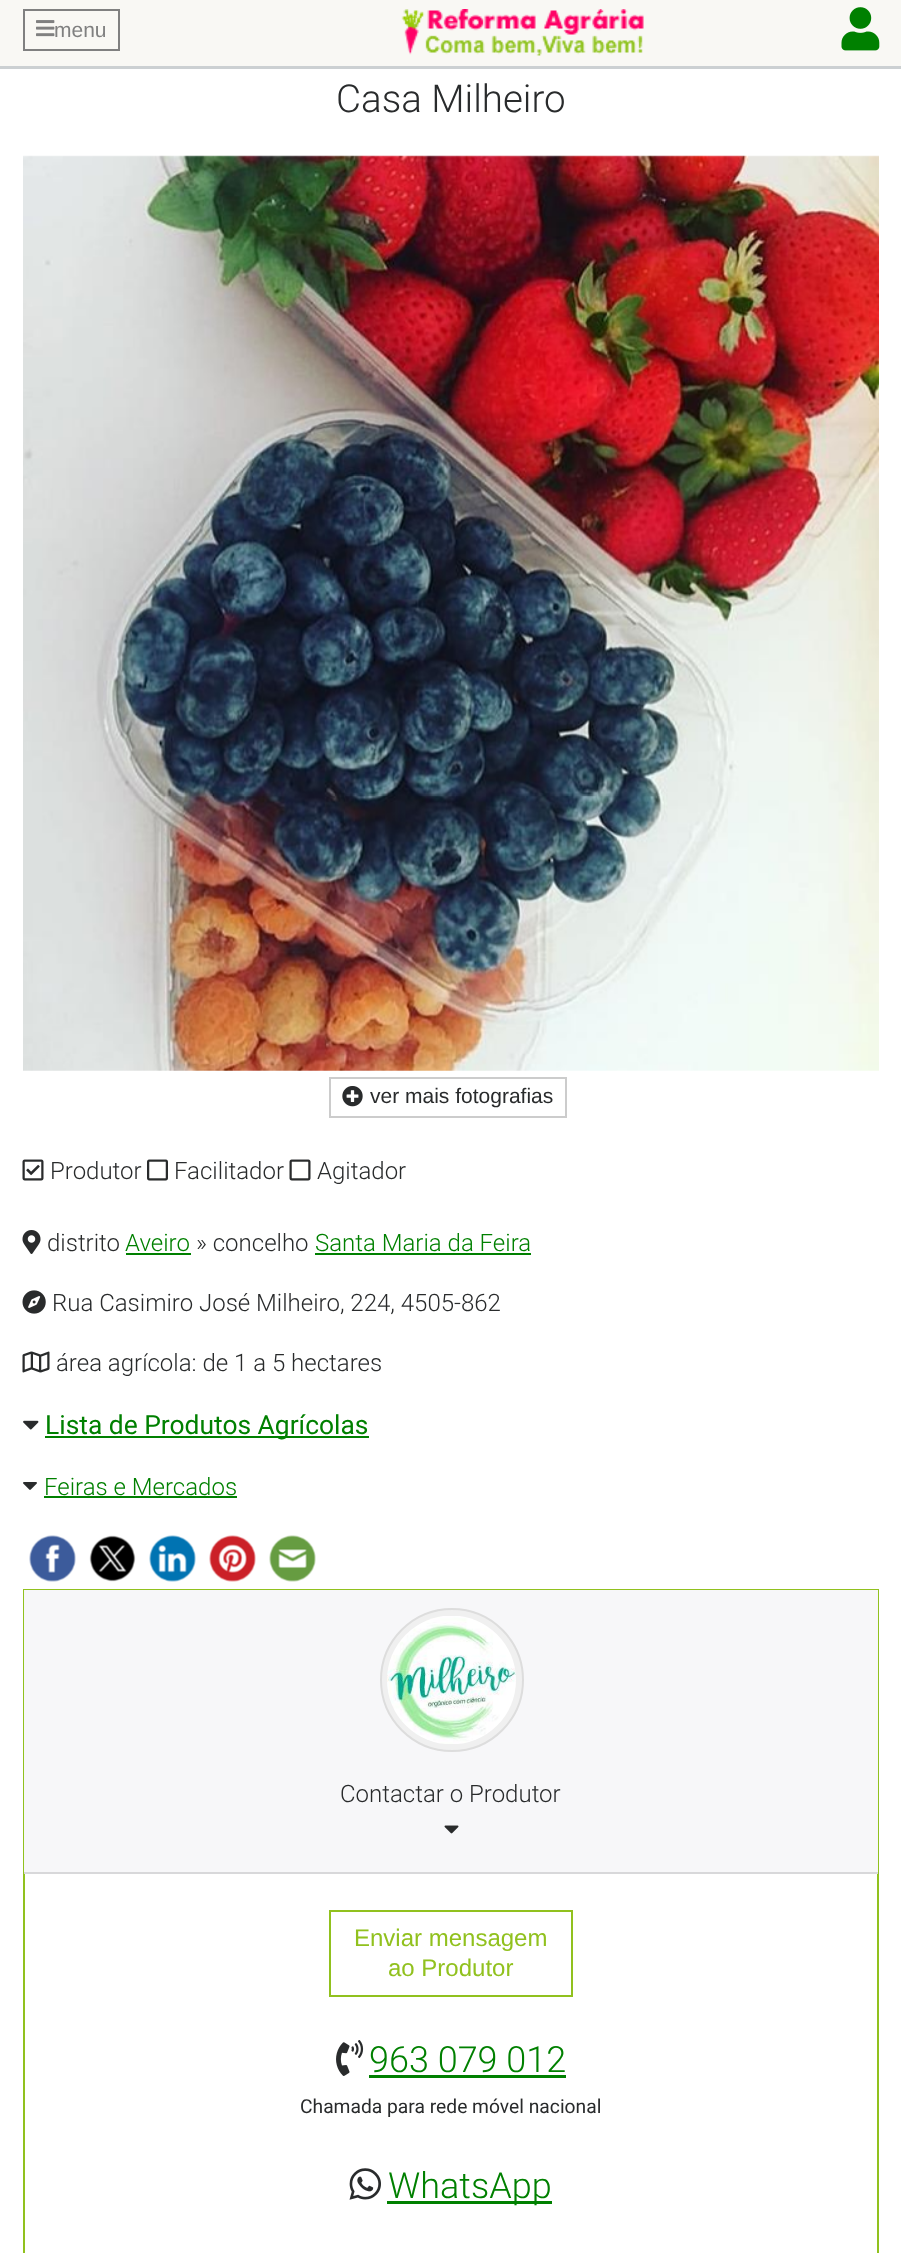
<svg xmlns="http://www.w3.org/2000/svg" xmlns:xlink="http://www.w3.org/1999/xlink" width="901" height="2253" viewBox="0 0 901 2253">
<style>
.cls-1{font:21px Liberation Sans;fill:#808080}
.cls-2{font:300 38.5px Roboto;fill:#292b2c}
.cls-3{font:21px Liberation Sans;fill:#292b2c}
.cls-4{font:300 24px Roboto;fill:#292b2c}
.cls-5{font:300 24px Roboto;fill:#008000}
.cls-6{font:26.4px Roboto;fill:#008000}
.cls-7{font:24px Liberation Sans;fill:#91c11e}
.cls-8{font:300 36px Roboto;fill:#008000}
.cls-9{font:19.25px Roboto;fill:#292b2c}
</style>
<rect width="100%" height="100%" fill="#ffffff"/>
<path fill="#ccd0d2" d="M0 66V69H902V3V66Z"/>
<rect fill="#f9f8f4" x="0" y="0" width="901" height="66"/>
<rect fill="none" stroke="#808080" stroke-width="2" x="24" y="10" width="95" height="40"/>
<image xlink:href="image0.png" x="36" y="20" width="19" height="17"/>
<image xlink:href="image1.png" x="401" y="9" width="243" height="47"/>
<image xlink:href="image2.png" x="841" y="7" width="39" height="44"/>
<image xlink:href="image3.png" x="23" y="155" width="856" height="916"/>
<rect fill="none" stroke="#cccccc" stroke-width="2" x="330" y="1078" width="236" height="39"/>
<image xlink:href="image4.png" x="342" y="1086" width="21" height="21"/>
<image xlink:href="image5.png" x="22" y="1159" width="22" height="22"/>
<image xlink:href="image6.png" x="147" y="1159" width="21" height="22"/>
<image xlink:href="image7.png" x="289" y="1159" width="22" height="22"/>
<image xlink:href="image8.png" x="22" y="1230" width="19" height="24"/>
<rect fill="#008000" x="126" y="1253" width="65" height="2"/>
<rect fill="#008000" x="315" y="1253" width="216" height="2"/>
<image xlink:href="image9.png" x="22" y="1290" width="24" height="24"/>
<image xlink:href="image10.png" x="22" y="1351" width="28" height="22"/>
<image xlink:href="image11.png" x="23" y="1420" width="16" height="10"/>
<rect fill="#008000" x="45" y="1436" width="324" height="2"/>
<image xlink:href="image12.png" x="23" y="1482" width="14" height="8"/>
<rect fill="#008000" x="44" y="1496" width="193" height="2"/>
<image xlink:href="image13.png" x="29" y="1535" width="47" height="47"/>
<image xlink:href="image14.png" x="89" y="1535" width="47" height="47"/>
<image xlink:href="image15.png" x="149" y="1535" width="47" height="47"/>
<image xlink:href="image16.png" x="209" y="1535" width="47" height="47"/>
<image xlink:href="image17.png" x="269" y="1535" width="47" height="47"/>
<rect fill="none" stroke="#91c11e" stroke-width="2" x="24" y="1590" width="854" height="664"/>
<rect fill="#f7f7f9" x="24" y="1590" width="854" height="282"/>
<rect fill="#d8d8da" x="24" y="1872" width="854" height="2"/>
<circle fill="#f0f0f0" stroke="#dddddd" stroke-width="2" cx="452" cy="1680" r="71"/>
<image xlink:href="image18.png" x="387" y="1616" width="129" height="128"/>
<image xlink:href="image19.png" x="444" y="1825" width="15" height="9"/>
<rect fill="none" stroke="#91c11e" stroke-width="2" x="330" y="1911" width="242" height="85"/>
<image xlink:href="image20.png" x="336" y="2040" width="28" height="36"/>
<rect fill="#008000" x="369" y="2075" width="197" height="3"/>
<image xlink:href="image21.png" x="349" y="2168" width="32" height="32"/>
<rect fill="#008000" x="387" y="2201" width="165" height="3"/>
<text class="cls-1" x="54" y="37">menu</text>
<text class="cls-2" x="336" y="112">Casa Milheiro</text>
<text class="cls-3" x="370" y="1103">ver mais fotografias</text>
<text class="cls-4" x="50" y="1179">Produtor</text>
<text class="cls-4" x="174" y="1179">Facilitador</text>
<text class="cls-4" x="317" y="1179">Agitador</text>
<text class="cls-4" x="47" y="1251">distrito</text>
<text class="cls-5" x="125" y="1251">Aveiro</text>
<text class="cls-4" x="196" y="1251">» concelho</text>
<text class="cls-5" x="315" y="1251">Santa Maria da Feira</text>
<text class="cls-4" x="52" y="1311">Rua Casimiro José Milheiro, 224, 4505-862</text>
<text class="cls-4" x="56" y="1371">área agrícola: de 1 a 5 hectares</text>
<text class="cls-6" x="45" y="1434">Lista de Produtos Agrícolas</text>
<text class="cls-5" x="44" y="1495">Feiras e Mercados</text>
<text class="cls-4" x="340" y="1802">Contactar o Produtor</text>
<text class="cls-7" x="354" y="1946">Enviar mensagem</text>
<text class="cls-7" x="388" y="1976">ao Produtor</text>
<text class="cls-8" x="369" y="2072">963 079 012</text>
<text class="cls-9" x="300" y="2113">Chamada para rede móvel nacional</text>
<text class="cls-8" x="388" y="2198">WhatsApp</text>
</svg>
